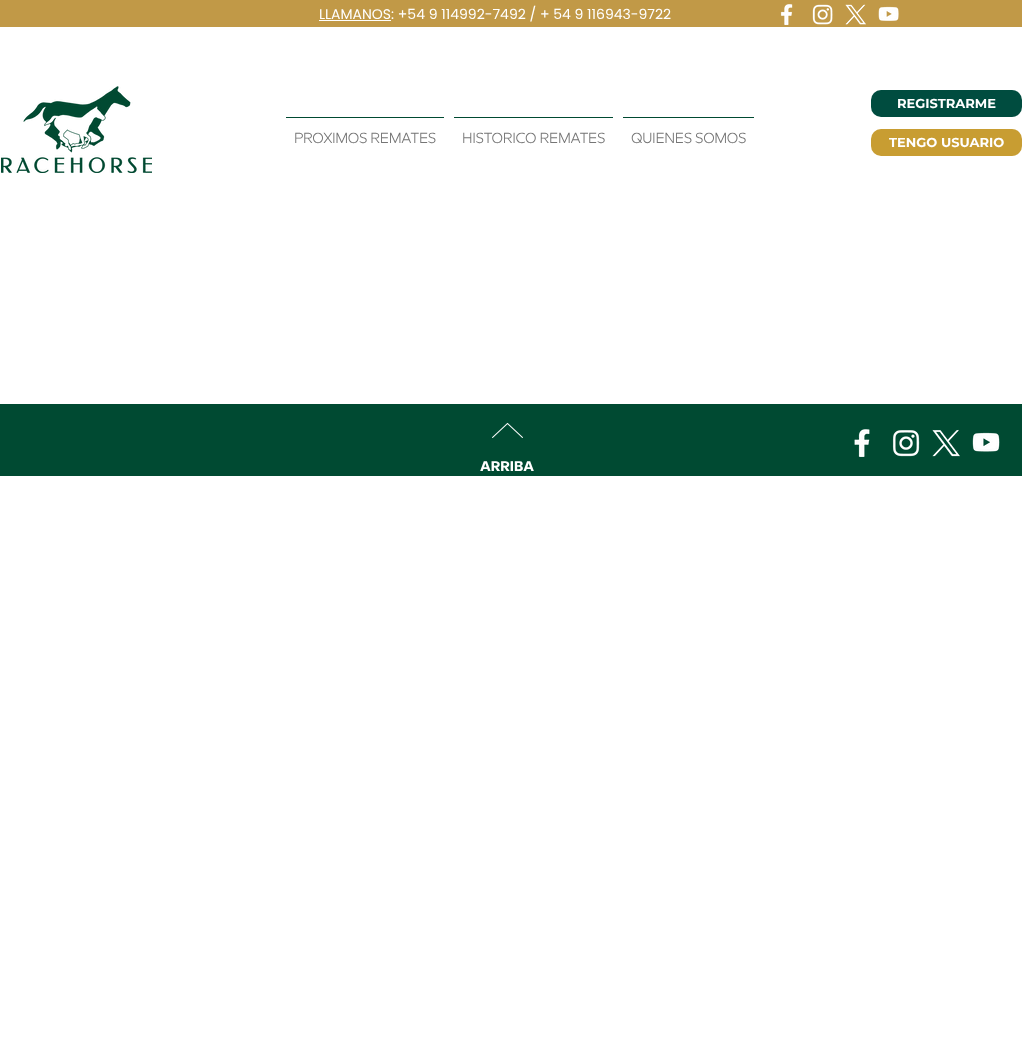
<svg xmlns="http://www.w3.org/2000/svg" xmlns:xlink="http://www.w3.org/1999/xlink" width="1022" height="1058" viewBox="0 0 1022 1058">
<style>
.cls-1{font:14px Poppins;fill:#ffffff}
.cls-2{font:bold 14px 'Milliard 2';fill:#757575}
.cls-3{font:bold 13px Montserrat;fill:#ffffff}
.cls-4{font:bold 14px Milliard;fill:#ffffff}
</style>
<rect width="100%" height="100%" fill="#ffffff"/>
<rect fill="#c19947" x="0" y="0" width="1022" height="27"/>
<rect fill="#fffffe" x="319" y="20" width="72" height="1"/>
<image xlink:href="image0.png" x="780" y="4" width="13" height="21"/>
<image xlink:href="image1.png" x="812" y="4" width="21" height="21"/>
<image xlink:href="image2.png" x="845" y="4" width="21" height="21"/>
<image xlink:href="image3.png" x="878" y="6" width="21" height="15"/>
<image xlink:href="image4.png" x="1" y="86" width="151" height="87"/>
<rect fill="#004a31" x="286" y="117" width="158" height="1"/>
<rect fill="#004a31" x="454" y="117" width="159" height="1"/>
<rect fill="#004a31" x="623" y="117" width="131" height="1"/>
<rect fill="#004c3f" x="871" y="90" width="151" height="27" rx="10"/>
<rect fill="#c89d32" x="871" y="129" width="151" height="27" rx="10"/>
<rect fill="#004a32" x="0" y="404" width="1022" height="72"/>
<image xlink:href="image5.png" x="492" y="422" width="31" height="16"/>
<image xlink:href="image6.png" x="854" y="429" width="16" height="28"/>
<image xlink:href="image7.png" x="892" y="430" width="28" height="27"/>
<image xlink:href="image8.png" x="932" y="429" width="28" height="28"/>
<image xlink:href="image9.png" x="972" y="432" width="28" height="20"/>
<text class="cls-1" x="319" y="19">LLAMANOS: +54 9 114992-7492 / + 54 9 116943-9722</text>
<text class="cls-2" x="294" y="143">PROXIMOS REMATES</text>
<text class="cls-2" x="462" y="143">HISTORICO REMATES</text>
<text class="cls-2" x="631" y="143">QUIENES SOMOS</text>
<text class="cls-3" x="897" y="108">REGISTRARME</text>
<text class="cls-3" x="889" y="147">TENGO USUARIO</text>
<text class="cls-4" x="480" y="471">ARRIBA</text>
</svg>
